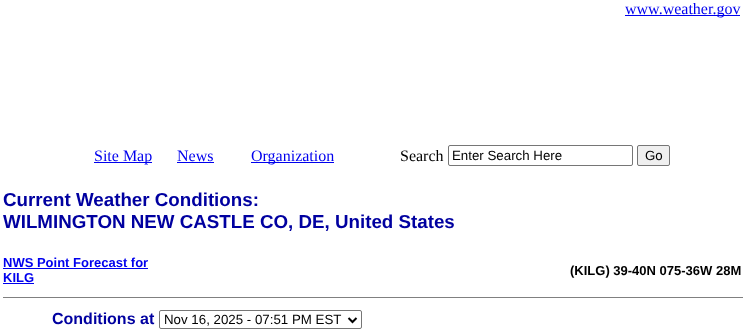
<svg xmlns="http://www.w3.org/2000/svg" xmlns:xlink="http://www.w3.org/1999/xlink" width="744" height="336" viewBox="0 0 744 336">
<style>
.cls-1{font:16px Liberation Serif;fill:#0000ee}
.cls-2{font:16px Liberation Serif;fill:#000000}
.cls-3{font:13.3px Liberation Sans;fill:#000000}
.cls-4{font:bold 18.75px Liberation Sans;fill:#0000a0}
.cls-5{font:bold 13px Liberation Sans;fill:#0000ee}
.cls-6{font:bold 13px Liberation Sans;fill:#000000}
.cls-7{font:bold 16px Liberation Sans;fill:#0000a0}
</style>
<rect width="100%" height="100%" fill="#ffffff"/>
<rect fill="#0000ee" x="625" y="15" width="115" height="1"/>
<rect fill="#0000ee" x="94" y="162" width="58" height="1"/>
<rect fill="#0000ee" x="177" y="162" width="37" height="1"/>
<rect fill="#0000ee" x="251" y="162" width="83" height="1"/>
<rect fill="none" stroke="#767676" x="448.5" y="145.5" width="184" height="20" rx="1.5"/>
<rect fill="#efefef" stroke="#767676" x="637.5" y="145.5" width="32" height="20" rx="1.5"/>
<rect fill="#0000ee" x="3" y="268" width="145" height="1"/>
<rect fill="#0000ee" x="3" y="283" width="31" height="1"/>
<rect fill="#808080" x="3" y="297" width="740" height="1"/>
<rect fill="none" stroke="#767676" x="159.5" y="310.5" width="202" height="18" rx="1.5"/>
<path fill="none" stroke="#000000" stroke-width="2" d="M348.5 318L352.5 322L356.5 318"/>
<text class="cls-1" x="625" y="14">www.weather.gov</text>
<text class="cls-1" x="94" y="161">Site Map</text>
<text class="cls-1" x="177" y="161">News</text>
<text class="cls-1" x="251" y="161">Organization</text>
<text class="cls-2" x="400" y="161">Search</text>
<text class="cls-3" x="452" y="160">Enter Search Here</text>
<text class="cls-3" x="645" y="160">Go</text>
<text class="cls-4"><tspan x="3" y="206">Current Weather Conditions:</tspan><tspan x="3" y="228">WILMINGTON NEW CASTLE CO, DE, United States</tspan></text>
<text class="cls-5"><tspan x="3" y="267">NWS Point Forecast for</tspan><tspan x="3" y="282">KILG</tspan></text>
<text class="cls-6" x="570" y="275">(KILG) 39-40N 075-36W 28M</text>
<text class="cls-7" x="52" y="324">Conditions at</text>
<text class="cls-3" x="164" y="324">Nov 16, 2025 - 07:51 PM EST</text>
</svg>
